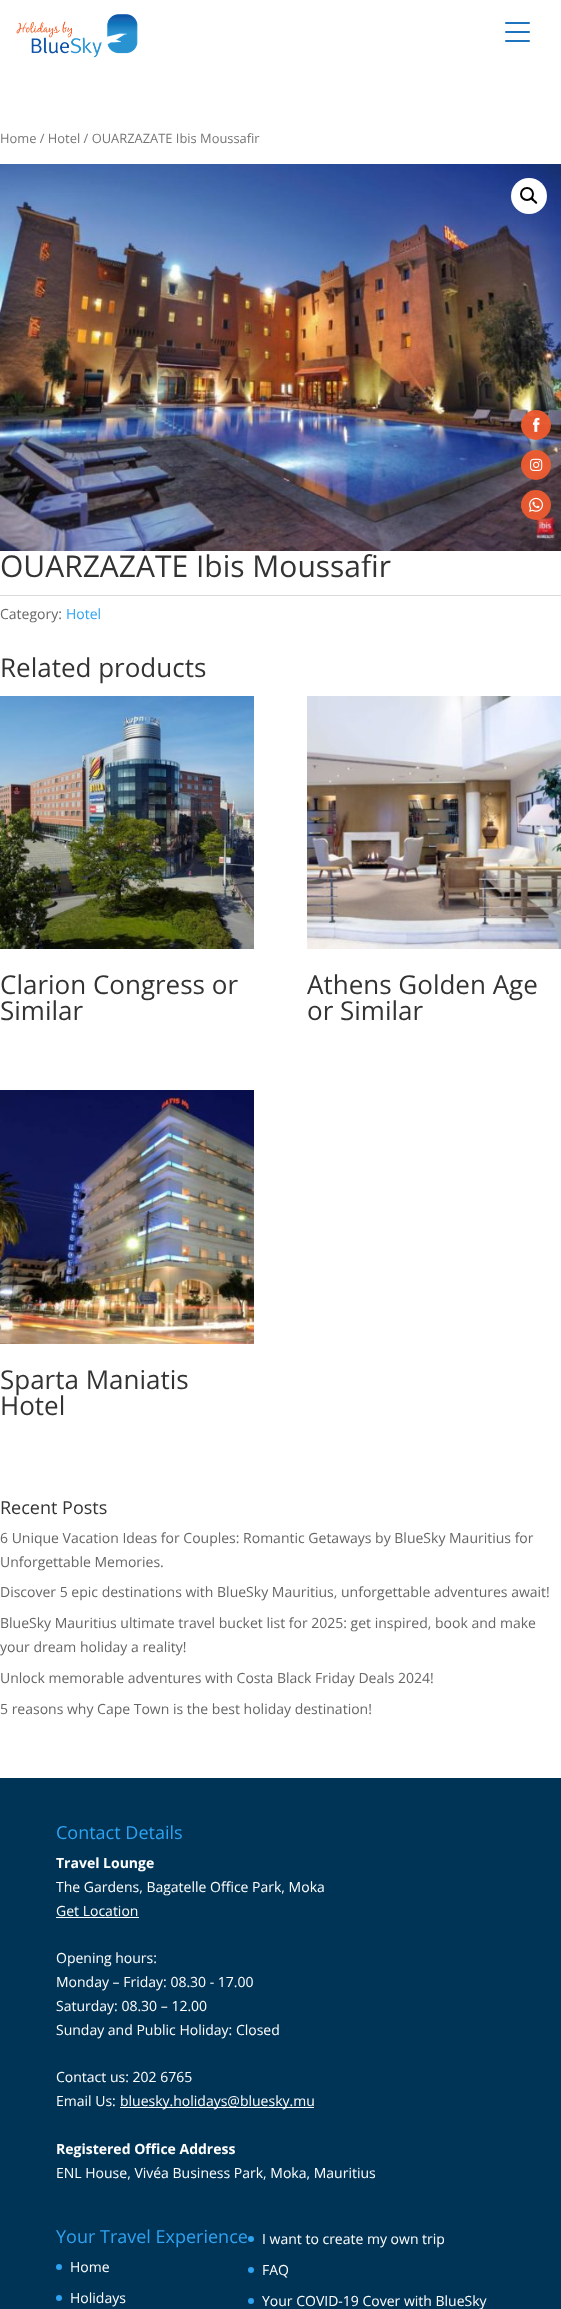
<svg xmlns="http://www.w3.org/2000/svg" xmlns:xlink="http://www.w3.org/1999/xlink" width="561" height="2309" viewBox="0 0 561 2309">
<style>
.cls-1{font:12.9px Open Sans;fill:#767676}
.cls-2{font:30px Open Sans;fill:#333333}
.cls-3{font:14px Open Sans;fill:#666666}
.cls-4{font:14px Open Sans;fill:#2ea3f2}
.cls-5{font:26px Open Sans;fill:#333333}
.cls-6{font:18px Open Sans;fill:#333333}
.cls-7{font:18px Open Sans;fill:#2ea3f2}
.cls-8{font:bold 14px Open Sans;fill:#ffffff}
.cls-9{font:14px Open Sans;fill:#ffffff}
</style>
<rect width="100%" height="100%" fill="#ffffff"/>
<image xlink:href="image0.png" x="16" y="14" width="122" height="44"/>
<rect fill="#1e73be" x="505" y="31" width="25" height="2" rx="1"/>
<rect fill="#1e73be" x="505" y="22" width="25" height="2" rx="1"/>
<rect fill="#1e73be" x="505" y="40" width="25" height="2" rx="1"/>
<image xlink:href="image1.png" x="0" y="164" width="561" height="387"/>
<circle fill="#ffffff" cx="529" cy="196" r="18"/>
<circle fill="none" stroke="#000000" stroke-width="2" cx="527" cy="194" r="6"/>
<path fill="#000000" d="M531 198C532.5 196.5 534 199.5 534.5 200C535.5 200.5 538 202.5 537 203.5C535.5 204.5 534 202 533.5 201.5C532.5 201 530 199 531 198Z"/>
<rect fill="#dadada" x="0" y="595" width="561" height="1"/>
<image xlink:href="image2.png" x="0" y="696" width="254" height="253"/>
<image xlink:href="image3.png" x="307" y="696" width="254" height="253"/>
<image xlink:href="image4.png" x="0" y="1090" width="254" height="254"/>
<rect fill="#003456" x="0" y="1778" width="561" height="531"/>
<rect fill="#ffffff" x="56" y="1917" width="83" height="1"/>
<rect fill="#ffffff" x="120" y="2107" width="194" height="1"/>
<circle fill="#2ea3f2" cx="59" cy="2267" r="3"/>
<circle fill="#2ea3f2" cx="59" cy="2298" r="3"/>
<circle fill="#2ea3f2" cx="251" cy="2239" r="3"/>
<circle fill="#2ea3f2" cx="251" cy="2270" r="3"/>
<circle fill="#2ea3f2" cx="251" cy="2301" r="3"/>
<circle fill="#ef5b2f" fill-opacity="0.95" cx="536" cy="425" r="15"/>
<image xlink:href="image5.png" x="533" y="417" width="7" height="15"/>
<circle fill="#ef5b2f" fill-opacity="0.95" cx="536" cy="465" r="15"/>
<image xlink:href="image6.png" x="530" y="458" width="13" height="13"/>
<circle fill="#ef5b2f" fill-opacity="0.95" cx="536" cy="505" r="15"/>
<image xlink:href="image7.png" x="529" y="497" width="14" height="15"/>
<text class="cls-1" x="0" y="143">Home / Hotel / OUARZAZATE Ibis Moussafir</text>
<text class="cls-2" x="0" y="577">OUARZAZATE Ibis Moussafir</text>
<text class="cls-3" x="0" y="619">Category:</text>
<text class="cls-4" x="66" y="619">Hotel</text>
<text class="cls-5" x="0" y="677">Related products</text>
<text class="cls-5"><tspan x="0" y="994">Clarion Congress or</tspan><tspan x="0" y="1020">Similar</tspan></text>
<text class="cls-5"><tspan x="307" y="994">Athens Golden Age</tspan><tspan x="307" y="1020">or Similar</tspan></text>
<text class="cls-5"><tspan x="0" y="1389">Sparta Maniatis</tspan><tspan x="0" y="1415">Hotel</tspan></text>
<text class="cls-6" x="0" y="1514">Recent Posts</text>
<text class="cls-3"><tspan x="0" y="1543">6 Unique Vacation Ideas for Couples: Romantic Getaways by BlueSky Mauritius for</tspan><tspan x="0" y="1567">Unforgettable Memories.</tspan></text>
<text class="cls-3" x="0" y="1597">Discover 5 epic destinations with BlueSky Mauritius, unforgettable adventures await!</text>
<text class="cls-3"><tspan x="0" y="1628">BlueSky Mauritius ultimate travel bucket list for 2025: get inspired, book and make</tspan><tspan x="0" y="1652">your dream holiday a reality!</tspan></text>
<text class="cls-3" x="0" y="1683">Unlock memorable adventures with Costa Black Friday Deals 2024!</text>
<text class="cls-3" x="0" y="1714">5 reasons why Cape Town is the best holiday destination!</text>
<text class="cls-7" x="56" y="1839">Contact Details</text>
<text class="cls-8" x="56" y="1868">Travel Lounge</text>
<text class="cls-9"><tspan x="56" y="1892">The Gardens, Bagatelle Office Park, Moka</tspan><tspan x="56" y="1916">Get Location</tspan></text>
<text class="cls-9"><tspan x="56" y="1963">Opening hours:</tspan><tspan x="56" y="1987">Monday – Friday: 08.30 - 17.00</tspan><tspan x="56" y="2011">Saturday: 08.30 – 12.00</tspan><tspan x="56" y="2035">Sunday and Public Holiday: Closed</tspan></text>
<text class="cls-9"><tspan x="56" y="2082">Contact us: 202 6765</tspan><tspan x="56" y="2106">Email Us:</tspan></text>
<text class="cls-9" x="120" y="2106">bluesky.holidays@bluesky.mu</text>
<text class="cls-8" x="56" y="2154">Registered Office Address</text>
<text class="cls-9" x="56" y="2178">ENL House, Vivéa Business Park, Moka, Mauritius</text>
<text class="cls-7" x="56" y="2243">Your Travel Experience</text>
<text class="cls-9" x="70" y="2272">Home</text>
<text class="cls-9" x="70" y="2303">Holidays</text>
<text class="cls-9" x="262" y="2244">I want to create my own trip</text>
<text class="cls-9" x="262" y="2275">FAQ</text>
<text class="cls-9" x="262" y="2306">Your COVID-19 Cover with BlueSky</text>
</svg>
